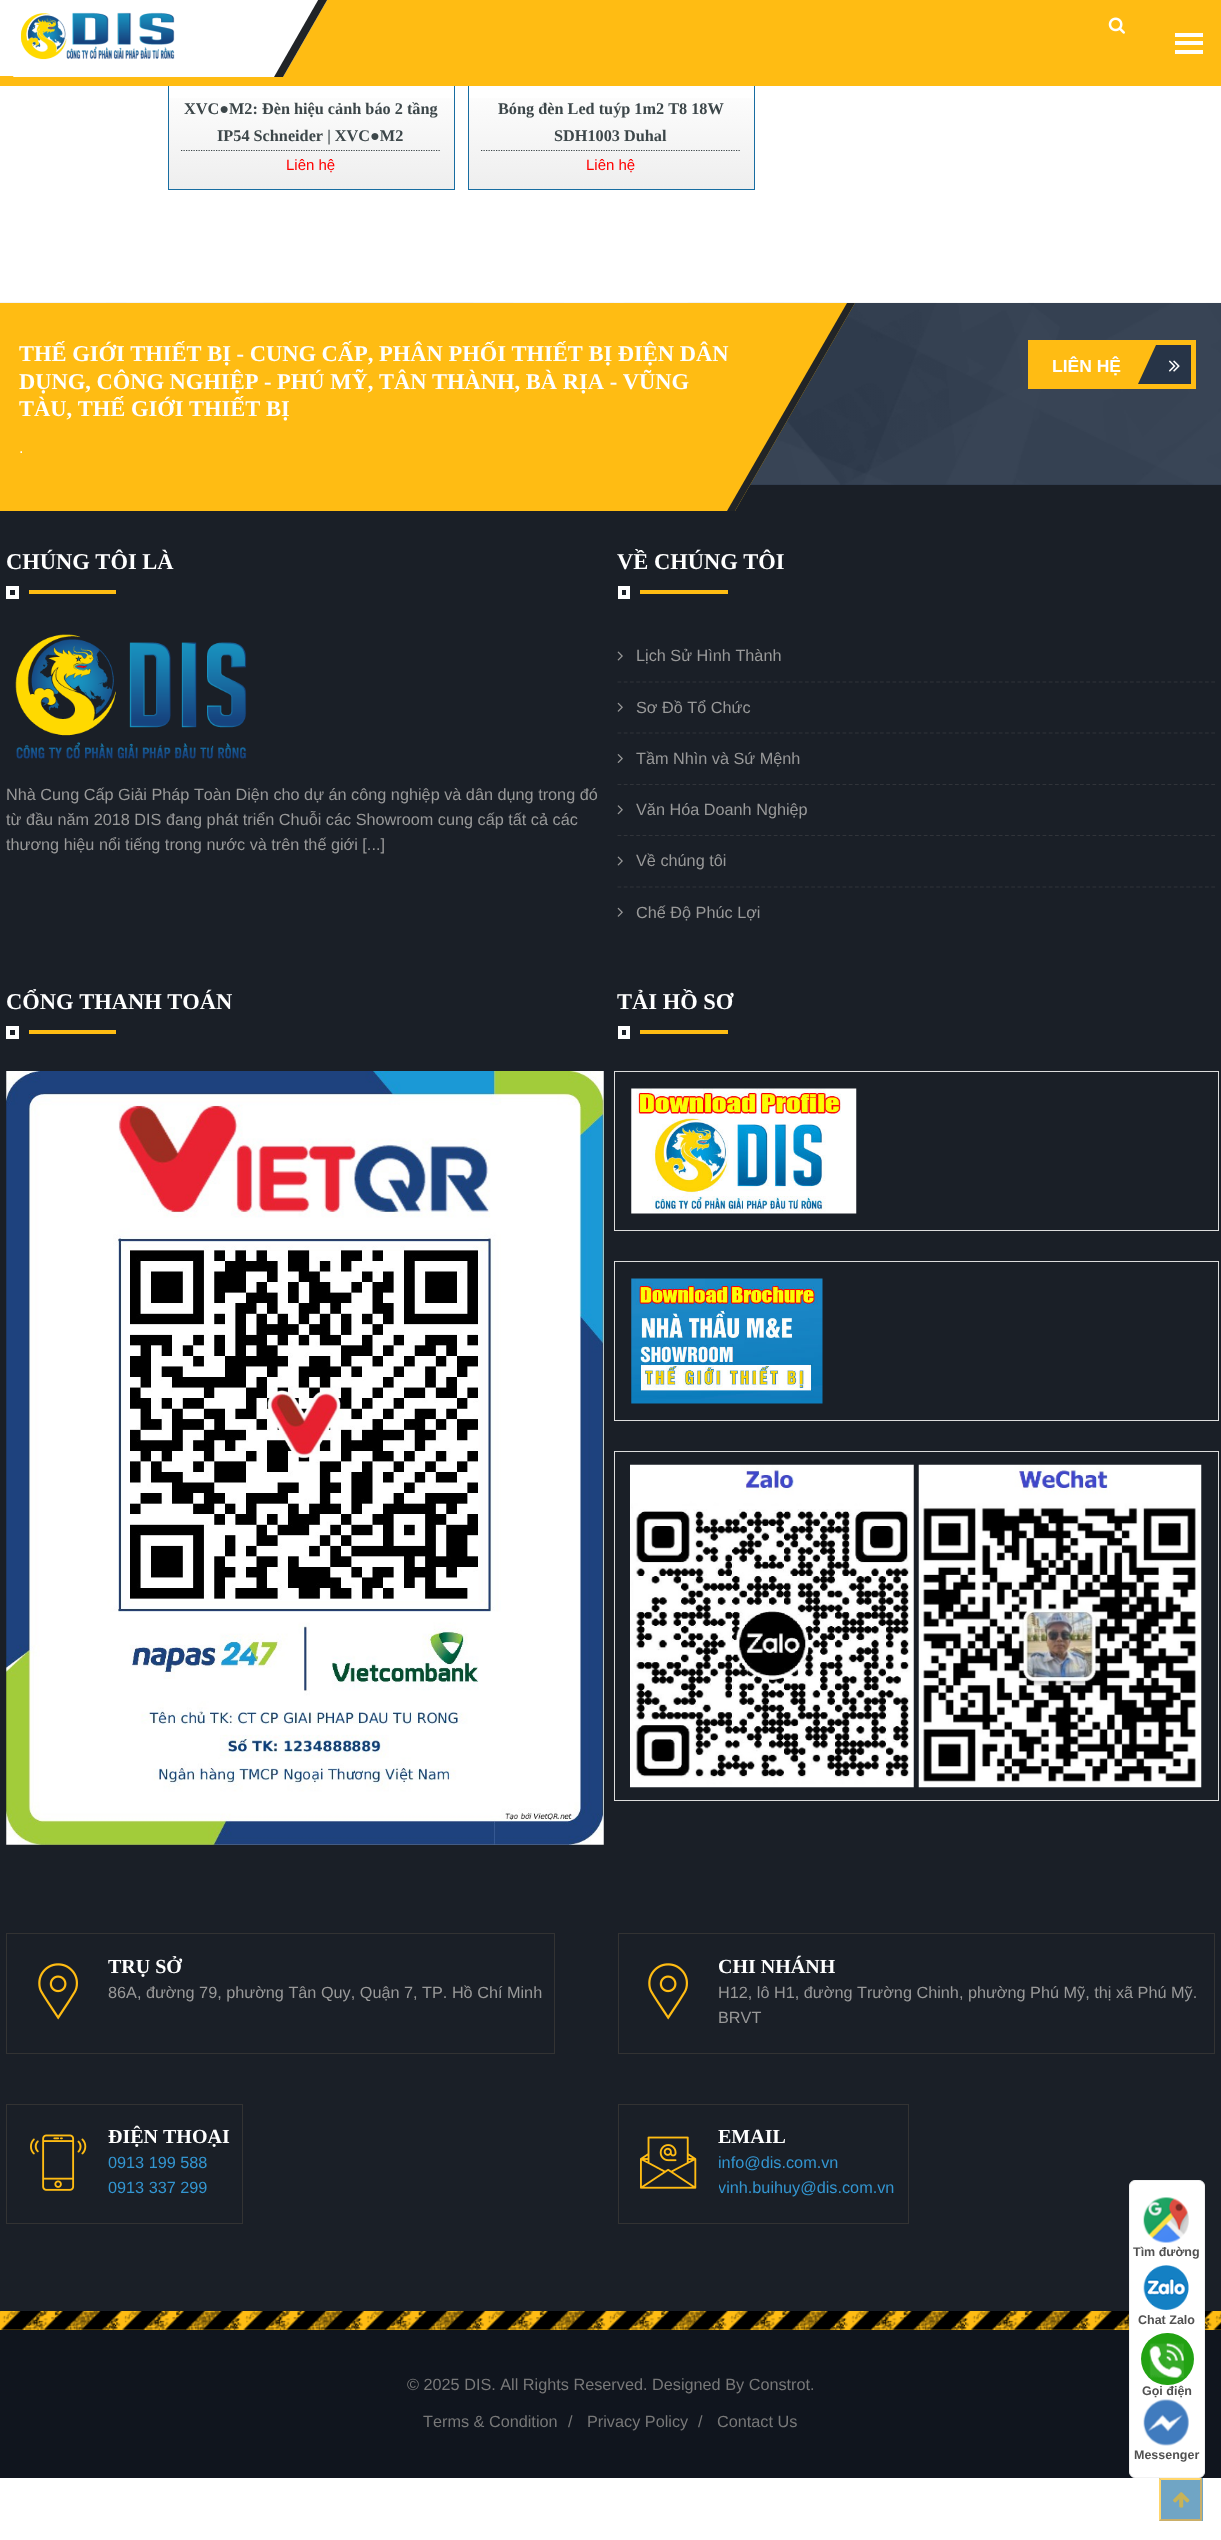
<svg xmlns="http://www.w3.org/2000/svg" xmlns:xlink="http://www.w3.org/1999/xlink" width="1221" height="2540" viewBox="0 0 1221 2540">
<style>*{font-kerning:none!important;font-variant-ligatures:none!important}</style>
<style>
.cls-1{font:bold 16.25px Liberation Serif;fill:#3d474a}
.cls-2{font:15px Liberation Sans;fill:#ff0000}
.cls-3{font:bold 22.5px Liberation Serif;fill:#ffffff}
.cls-4{font:16.25px Liberation Sans;fill:#ffffff}
.cls-5{font:bold 17.5px Liberation Sans;fill:#ffffff}
.cls-6{font:16.25px Liberation Sans;fill:#999999}
.cls-7{font:bold 20px Liberation Serif;fill:#ffffff}
.cls-8{font:16.25px Liberation Sans;fill:#3396d1}
.cls-9{font:16.25px Liberation Sans;fill:#787878}
.cls-10{font:bold 12.5px Liberation Sans;fill:#515151}
</style>
<defs>
<linearGradient id="g1" gradientUnits="userSpaceOnUse" x1="311" y1="82" x2="311" y2="189"><stop offset="0" stop-color="#ffffff"/><stop offset="1" stop-color="#eeeeee"/></linearGradient>
<linearGradient id="g2" gradientUnits="userSpaceOnUse" x1="611" y1="82" x2="611" y2="189"><stop offset="0" stop-color="#ffffff"/><stop offset="1" stop-color="#eeeeee"/></linearGradient>
<clipPath id="clip1"><rect x="108" y="1953" width="433" height="52"/></clipPath>
<clipPath id="clip2"><rect x="719" y="2124" width="176" height="77"/></clipPath>
</defs>
<rect width="100%" height="100%" fill="#ffffff"/>
<rect fill="none" stroke="#186da1" x="168.5" y="-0.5" width="286" height="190"/>
<rect fill="none" stroke="#186da1" x="468.5" y="-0.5" width="286" height="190"/>
<rect fill="#ffbc13" x="0" y="0" width="1221" height="86"/>
<path fill="#ffffff" d="M60-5H330L283 77H13Z"/>
<rect fill="#ffffff" x="0" y="0" width="58" height="76"/>
<path fill="#212427" d="M321-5H330L283 77H274Z"/>
<image xlink:href="image0.png" x="21" y="12" width="154" height="48"/>
<image xlink:href="image1.png" x="1108" y="17" width="17" height="17"/>
<rect fill="#ffffff" x="1175" y="33" width="28" height="4"/>
<rect fill="#ffffff" x="1175" y="41" width="28" height="4"/>
<rect fill="#ffffff" x="1175" y="50" width="28" height="4"/>
<rect fill="url(#g1)" x="169" y="98" width="285" height="91"/>
<path fill="none" stroke="#3d474a" stroke-width="1.2" stroke-dasharray="1.25 1.25" d="M181 150.5H441"/>
<rect fill="url(#g2)" x="469" y="98" width="285" height="91"/>
<path fill="none" stroke="#3d474a" stroke-width="1.2" stroke-dasharray="1.25 1.25" d="M481 150.5H741"/>
<rect fill="#273447" x="750" y="303" width="471" height="182"/>
<image xlink:href="image2.png" x="0" y="302" width="1221" height="183"/>
<rect fill="#1a1f27" x="0" y="485" width="1221" height="1826"/>
<path fill="#ffbc13" d="M-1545 303H855L735 511H-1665Z"/>
<path fill="#212427" d="M847 303H855L735 511H727Z"/>
<rect fill="#ffbc13" x="1028" y="340" width="168" height="49"/>
<rect fill="#273447" x="1158" y="345" width="33" height="39"/>
<path fill="#273447" d="M1156 345H1176.5L1158.5 384H1138Z"/>
<image xlink:href="image3.png" x="1168" y="360" width="12" height="12"/>
<rect fill="none" stroke="#ffffff" stroke-width="4" x="8" y="588" width="9" height="9"/>
<rect fill="#ffbc13" x="29" y="590" width="87" height="4"/>
<image xlink:href="image4.png" x="15" y="634" width="232" height="125"/>
<rect fill="none" stroke="#ffffff" stroke-width="4" x="620" y="588" width="8" height="9"/>
<rect fill="#ffbc13" x="640" y="590" width="88" height="4"/>
<path fill="none" stroke="#31343a" stroke-width="1.2" stroke-dasharray="3.75 2.5" d="M617.5 682H1215"/>
<image xlink:href="image5.png" x="617" y="651" width="6" height="10"/>
<path fill="none" stroke="#31343a" stroke-width="1.2" stroke-dasharray="3.75 2.5" d="M617.5 733H1215"/>
<image xlink:href="image6.png" x="617" y="702" width="6" height="10"/>
<path fill="none" stroke="#31343a" stroke-width="1.2" stroke-dasharray="3.75 2.5" d="M617.5 784.5H1215"/>
<image xlink:href="image7.png" x="617" y="754" width="6" height="9"/>
<path fill="none" stroke="#31343a" stroke-width="1.2" stroke-dasharray="3.75 2.5" d="M617.5 835.5H1215"/>
<image xlink:href="image8.png" x="617" y="805" width="6" height="10"/>
<path fill="none" stroke="#31343a" stroke-width="1.2" stroke-dasharray="3.75 2.5" d="M617.5 887H1215"/>
<image xlink:href="image5.png" x="617" y="856" width="6" height="10"/>
<image xlink:href="image6.png" x="617" y="907" width="6" height="10"/>
<rect fill="none" stroke="#ffffff" stroke-width="4" x="8" y="1028" width="9" height="9"/>
<rect fill="#ffbc13" x="29" y="1030" width="87" height="4"/>
<image xlink:href="image9.png" x="6" y="1071" width="598" height="774"/>
<rect fill="none" stroke="#ffffff" stroke-width="4" x="620" y="1028" width="8" height="9"/>
<rect fill="#ffbc13" x="640" y="1030" width="88" height="4"/>
<rect fill="none" stroke="#dddddd" x="614.5" y="1071.5" width="604" height="159"/>
<image xlink:href="image10.png" x="631" y="1088" width="226" height="126"/>
<rect fill="none" stroke="#dddddd" x="614.5" y="1261.5" width="604" height="159"/>
<image xlink:href="image11.png" x="631" y="1278" width="192" height="126"/>
<rect fill="none" stroke="#dddddd" x="614.5" y="1451.5" width="604" height="349"/>
<image xlink:href="image12.png" x="630" y="1464" width="284" height="324"/>
<image xlink:href="image13.png" x="918" y="1464" width="284" height="324"/>
<rect fill="none" stroke="#333333" x="6.5" y="1933.5" width="548" height="120"/>
<image xlink:href="image14.png" x="38" y="1963" width="40" height="57"/>
<rect fill="none" stroke="#333333" x="618.5" y="1933.5" width="596" height="120"/>
<image xlink:href="image14.png" x="648" y="1963" width="40" height="57"/>
<rect fill="none" stroke="#333333" x="6.5" y="2104.5" width="236" height="119"/>
<image xlink:href="image15.png" x="30" y="2134" width="57" height="57"/>
<rect fill="none" stroke="#333333" x="618.5" y="2104.5" width="290" height="119"/>
<image xlink:href="image16.png" x="640" y="2136" width="57" height="53"/>
<rect fill="#10151e" x="0" y="2330" width="1221" height="148"/>
<rect fill="#ffbc13" x="0" y="2311" width="1221" height="19"/>
<image xlink:href="image17.png" x="0" y="2311" width="1221" height="19"/>
<rect fill="#70a5c5" x="1159" y="2478" width="44" height="43"/>
<path fill="#ffd66d" d="M1159 2478H1202L1200 2480H1161Z"/>
<path fill="#caaf69" d="M1202 2478V2521L1200 2519V2480Z"/>
<path fill="#caaf69" d="M1202 2521H1159L1161 2519H1200Z"/>
<path fill="#ffd66d" d="M1159 2521V2478L1161 2480V2519Z"/>
<image xlink:href="image18.png" x="1173" y="2492" width="17" height="16"/>
<rect fill="#ffffff" stroke="#f2f2f2" x="1129.5" y="2180.5" width="75" height="297" rx="5.5"/>
<image xlink:href="image19.png" x="1143" y="2197" width="46" height="46"/>
<image xlink:href="image20.png" x="1143" y="2265" width="46" height="45"/>
<rect fill="#22a213" x="1141" y="2333" width="53" height="52" rx="26"/>
<image xlink:href="image21.png" x="1149" y="2343" width="35" height="35"/>
<image xlink:href="image22.png" x="1143" y="2399" width="46" height="47"/>
<text class="cls-1" x="184" y="114">XVC●M2: Đèn hiệu cảnh báo 2 tầng</text>
<text class="cls-1" x="217" y="141">IP54 Schneider | XVC●M2</text>
<text class="cls-2" x="286" y="170">Liên hệ</text>
<text class="cls-1" x="498" y="114">Bóng đèn Led tuýp 1m2 T8 18W</text>
<text class="cls-1" x="554" y="141">SDH1003 Duhal</text>
<text class="cls-2" x="586" y="170">Liên hệ</text>
<text class="cls-3"><tspan x="19" y="361">THẾ GIỚI THIẾT BỊ - CUNG CẤP, PHÂN PHỐI THIẾT BỊ ĐIỆN DÂN</tspan><tspan x="19" y="389">DỤNG, CÔNG NGHIỆP - PHÚ MỸ, TÂN THÀNH, BÀ RỊA - VŨNG</tspan><tspan x="19" y="416">TÀU, THẾ GIỚI THIẾT BỊ</tspan></text>
<text class="cls-4" x="19" y="453">.</text>
<text class="cls-5" x="1052" y="372">LIÊN HỆ</text>
<text class="cls-3" x="6" y="569">CHÚNG TÔI LÀ</text>
<text class="cls-6"><tspan x="6" y="800">Nhà Cung Cấp Giải Pháp Toàn Diện cho dự án công nghiệp và dân dụng trong đó</tspan><tspan x="6" y="825">từ đầu năm 2018 DIS đang phát triển Chuỗi các Showroom cung cấp tất cả các</tspan><tspan x="6" y="850">thương hiệu nổi tiếng trong nước và trên thế giới [...]</tspan></text>
<text class="cls-3" x="617" y="569">VỀ CHÚNG TÔI</text>
<text class="cls-6" x="636" y="661">Lịch Sử Hình Thành</text>
<text class="cls-6" x="636" y="713">Sơ Đồ Tổ Chức</text>
<text class="cls-6" x="636" y="764">Tầm Nhìn và Sứ Mệnh</text>
<text class="cls-6" x="636" y="815">Văn Hóa Doanh Nghiệp</text>
<text class="cls-6" x="636" y="866">Về chúng tôi</text>
<text class="cls-6" x="636" y="918">Chế Độ Phúc Lợi</text>
<text class="cls-3" x="6" y="1009">CỔNG THANH TOÁN</text>
<text class="cls-3" x="617" y="1009">TẢI HỒ SƠ</text>
<g clip-path="url(#clip1)">
<text class="cls-7" x="108" y="1973">TRỤ SỞ</text>
</g>
<text class="cls-6" x="108" y="1998">86A, đường 79, phường Tân Quy, Quận 7, TP. Hồ Chí Minh</text>
<text class="cls-7" x="718" y="1973">CHI NHÁNH</text>
<text class="cls-6"><tspan x="718" y="1998">H12, lô H1, đường Trường Chinh, phường Phú Mỹ, thị xã Phú Mỹ.</tspan><tspan x="718" y="2023">BRVT</tspan></text>
<text class="cls-7" x="108" y="2143">ĐIỆN THOẠI</text>
<text class="cls-8"><tspan x="108" y="2168">0913 199 588</tspan><tspan x="108" y="2193">0913 337 299</tspan></text>
<text class="cls-7" x="718" y="2143">EMAIL</text>
<text class="cls-8" x="718" y="2168">info@dis.com.vn</text>
<g clip-path="url(#clip2)">
<text class="cls-8" x="718" y="2193">vinh.buihuy@dis.com.vn</text>
</g>
<text class="cls-9" x="407" y="2390">© 2025 DIS. All Rights Reserved. Designed By Constrot.</text>
<text class="cls-9" x="423" y="2427">Terms &amp; Condition</text>
<text class="cls-9" x="568" y="2427">/</text>
<text class="cls-9" x="587" y="2427">Privacy Policy</text>
<text class="cls-9" x="698" y="2427">/</text>
<text class="cls-9" x="717" y="2427">Contact Us</text>
<text class="cls-10" x="1133" y="2256">Tìm đường</text>
<text class="cls-10" x="1138" y="2324">Chat Zalo</text>
<text class="cls-10" x="1142" y="2395">Gọi điện</text>
<text class="cls-10" x="1134" y="2459">Messenger</text>
</svg>
